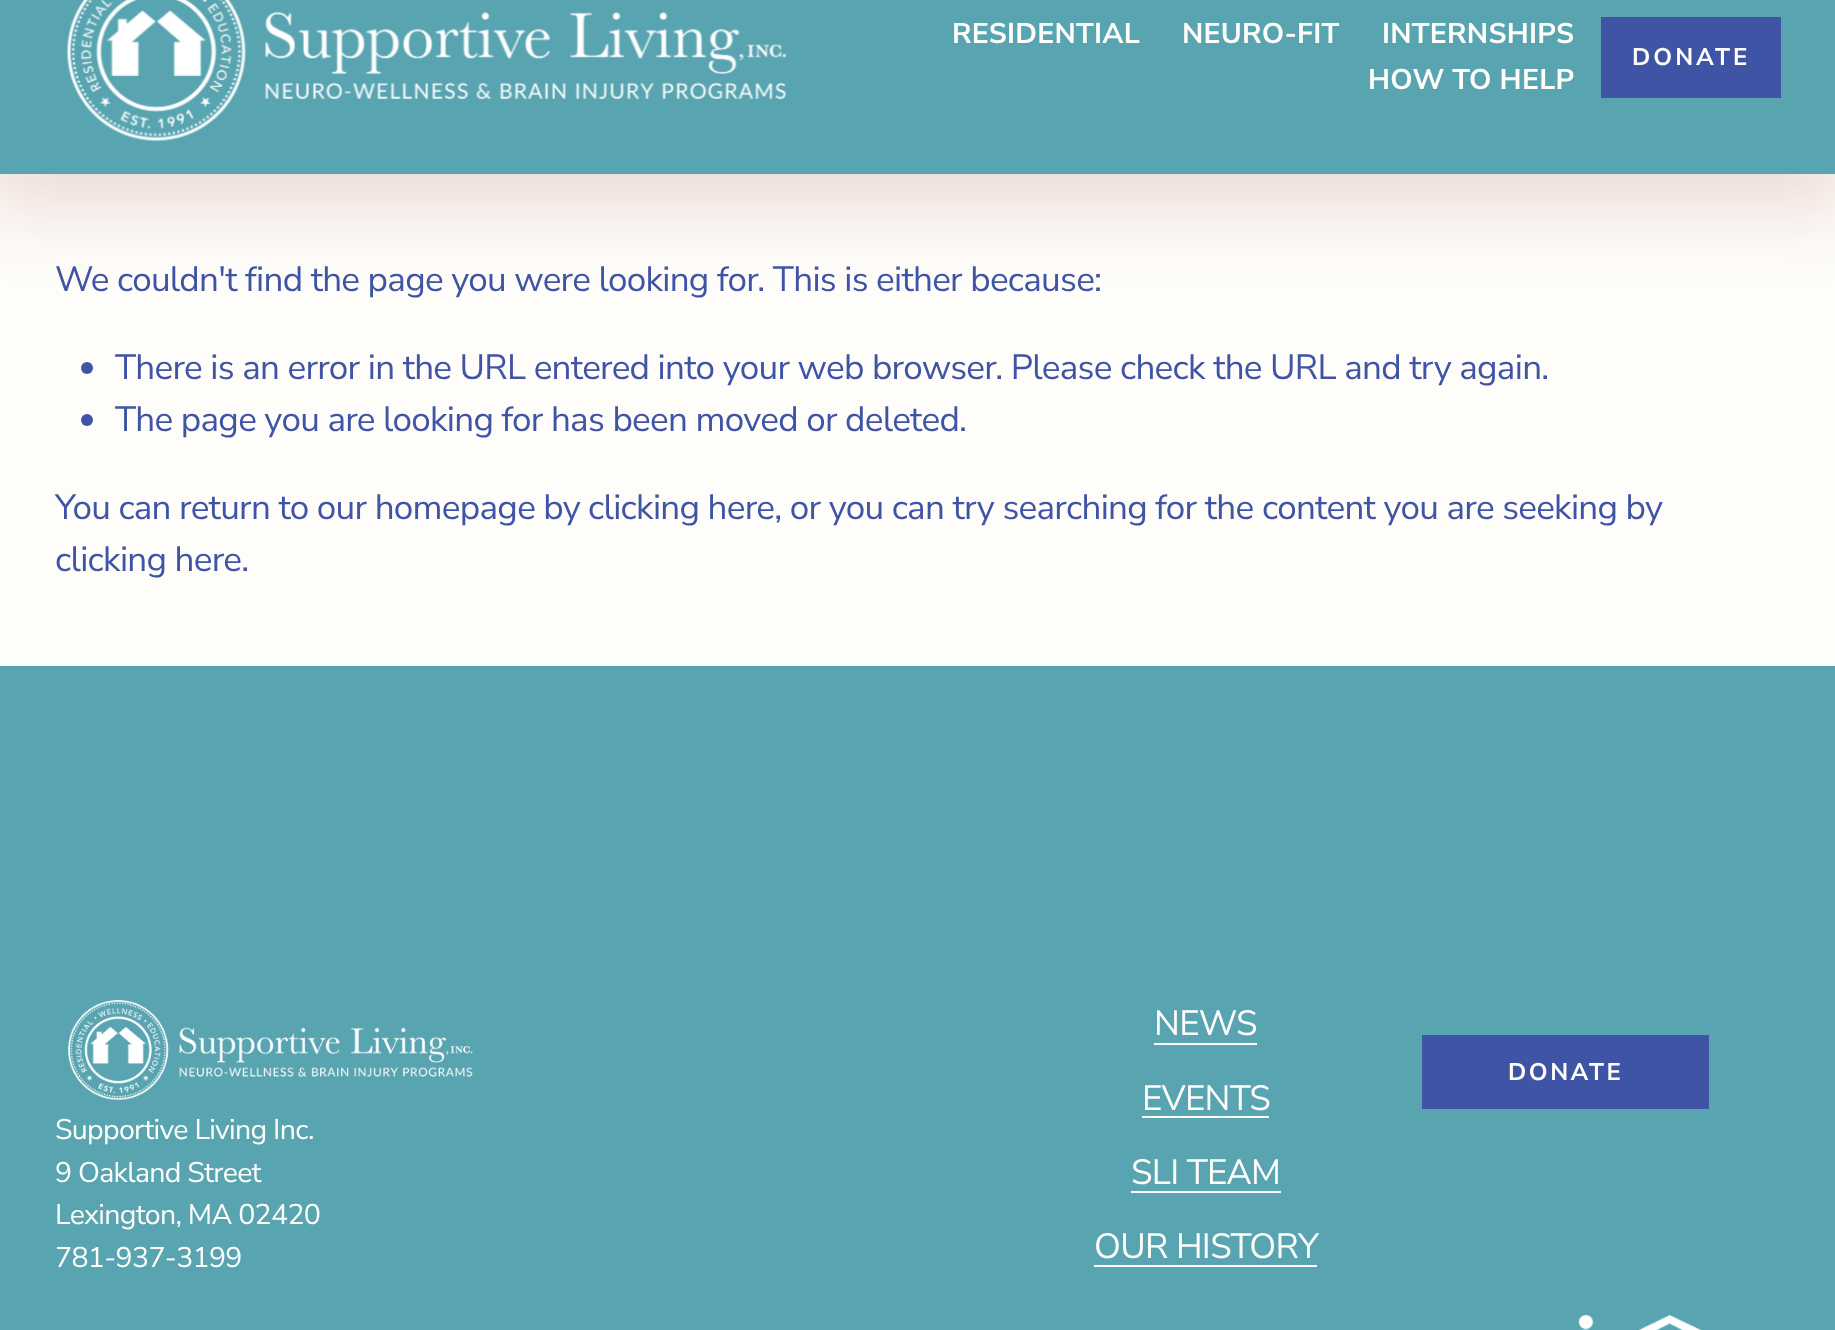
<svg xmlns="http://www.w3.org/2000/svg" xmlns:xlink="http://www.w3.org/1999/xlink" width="1835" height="1330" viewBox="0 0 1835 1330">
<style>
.cls-1{font:bold 28.5px Nunito Sans;letter-spacing:0.25px;fill:#fefdfa}
.cls-2{font:bold 24px Nunito Sans;letter-spacing:3px;fill:#fefdfa}
.cls-3{font:35px Nunito Sans;letter-spacing:-0.7px;fill:#3f54a5}
.cls-4{font:35px Nunito Sans;letter-spacing:-0.7px;fill:#fefdfa}
.cls-5{font:bold 24px Nunito Sans;letter-spacing:2.5px;fill:#fefdfa}
.cls-6{font:28.5px Nunito Sans;letter-spacing:-0.7px;fill:#fefdfa}
</style>
<rect width="100%" height="100%" fill="#fefdfa"/>
<rect fill="#931f1d" fill-opacity="0.15" filter="blur(36px)" x="-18" y="-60" width="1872" height="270"/>
<rect fill="#58a4b0" x="0" y="0" width="1835" height="174"/>
<image xlink:href="image0.png" x="66" y="0" width="721" height="142"/>
<rect fill="#3f54a5" x="1601" y="17" width="180" height="81"/>
<circle fill="#3f54a5" cx="87" cy="368" r="6"/>
<circle fill="#3f54a5" cx="87" cy="420" r="6"/>
<rect fill="#58a4b0" x="0" y="666" width="1835" height="664"/>
<image xlink:href="image1.png" x="67" y="1000" width="406" height="101"/>
<rect fill="#ffffff" x="1154" y="1043" width="103" height="2"/>
<rect fill="#3f54a5" x="1422" y="1035" width="287" height="74"/>
<rect fill="#ffffff" x="1142" y="1116" width="127" height="2"/>
<rect fill="#ffffff" x="1131" y="1191" width="150" height="2"/>
<rect fill="#ffffff" x="1094" y="1265" width="223" height="2"/>
<image xlink:href="image2.png" x="1578" y="1315" width="123" height="15"/>
<text class="cls-1" x="952" y="43">RESIDENTIAL</text>
<text class="cls-1" x="1182" y="43">NEURO-FIT</text>
<text class="cls-1" x="1382" y="43">INTERNSHIPS</text>
<text class="cls-1" x="1368" y="89">HOW TO HELP</text>
<text class="cls-2" x="1632" y="65">DONATE</text>
<text class="cls-3" x="55" y="291">We couldn't find the page you were looking for. This is either because:</text>
<text class="cls-3"><tspan x="115" y="379">There is an error in the URL entered into your web browser. Please check the URL and try again.</tspan><tspan x="115" y="431">The page you are looking for has been moved or deleted.</tspan></text>
<text class="cls-3" x="55" y="519">You can return to our homepage by</text>
<text class="cls-3" x="588" y="519">clicking here, or you can try searching for the</text>
<text class="cls-3" x="1262" y="519">content you are seeking by</text>
<text class="cls-3" x="55" y="571">clicking here.</text>
<text class="cls-4" x="1154" y="1035">NEWS</text>
<text class="cls-5" x="1508" y="1080">DONATE</text>
<text class="cls-4" x="1142" y="1110">EVENTS</text>
<text class="cls-6"><tspan x="55" y="1139">Supportive Living Inc.</tspan><tspan x="55" y="1182">9 Oakland Street</tspan><tspan x="55" y="1224">Lexington, MA 02420</tspan><tspan x="55" y="1267">781-937-3199</tspan></text>
<text class="cls-4" x="1131" y="1184">SLI TEAM</text>
<text class="cls-4" x="1094" y="1258">OUR HISTORY</text>
</svg>
